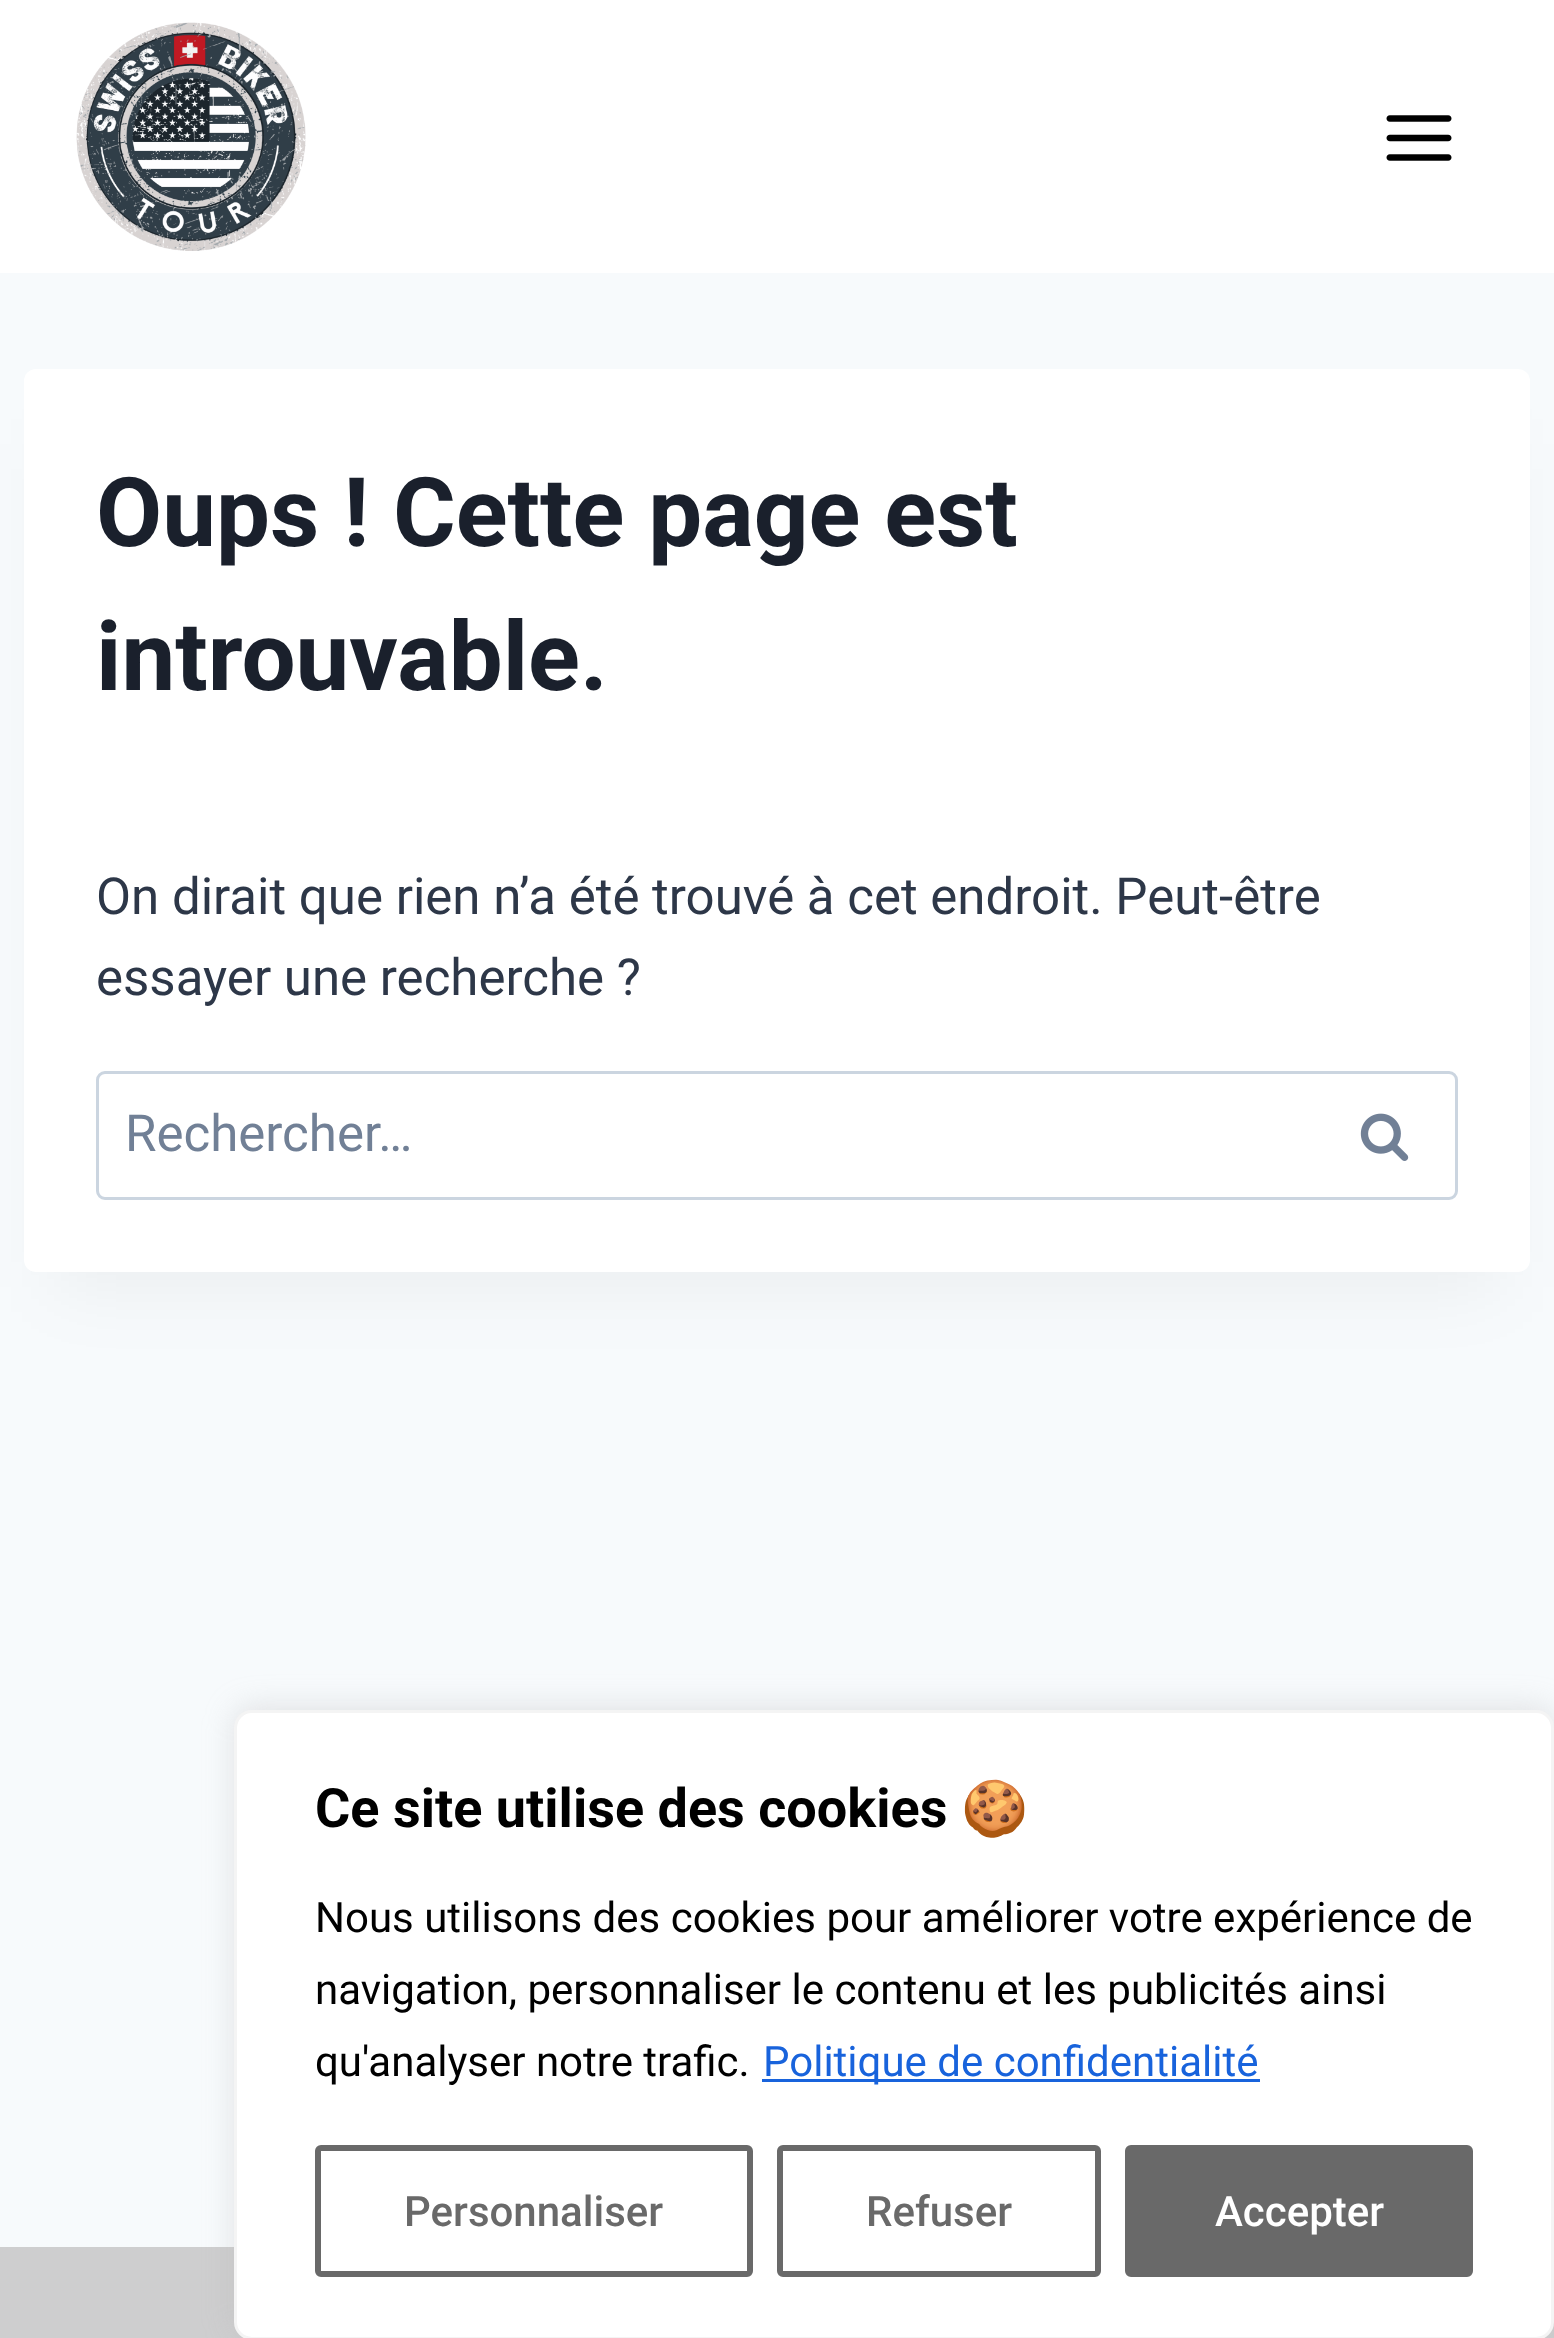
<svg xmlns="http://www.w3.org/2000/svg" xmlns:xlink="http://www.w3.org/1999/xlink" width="1554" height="2338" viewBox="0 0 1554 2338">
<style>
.cls-1{font:bold 96px Roboto;fill:#1a202c}
.cls-2{font:51px Roboto;fill:#2d3748}
.cls-3{font:51px Roboto;fill:#718096}
.cls-4{font:bold 54px Roboto;fill:#000000}
.cls-5{font:bold 54px Noto Color Emoji;fill:#000000}
.cls-6{font:42px Roboto;fill:#000000}
.cls-7{font:42px Roboto;fill:#1863dc}
.cls-8{font:500 42px Roboto;fill:#696969}
.cls-9{font:500 42px Roboto;fill:#ffffff}
</style>
<rect width="100%" height="100%" fill="#f7fafc"/>
<rect fill="#ffffff" x="0" y="0" width="1554" height="273"/>
<image xlink:href="image0.png" x="76" y="22" width="230" height="229"/>
<image xlink:href="image1.png" x="1386" y="115" width="66" height="46"/>
<rect fill="#000000" fill-opacity="0.05" filter="blur(37.5px)" x="54" y="444" width="1446" height="843"/>
<rect fill="#ffffff" x="24" y="369" width="1506" height="903" rx="12"/>
<rect fill="none" stroke="#cbd5e0" stroke-width="3" x="97.5" y="1072.5" width="1359" height="126" rx="7.5"/>
<image xlink:href="image2.png" x="1360" y="1113" width="49" height="48"/>
<rect fill="#cececf" x="0" y="2247" width="1554" height="91"/>
<rect fill="#acabab" fill-opacity="0.3" filter="blur(15px)" x="234" y="1707" width="1320" height="630" rx="18"/>
<rect fill="#ffffff" stroke="#f4f4f4" stroke-width="3" x="235.5" y="1711.5" width="1317" height="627" rx="16.5"/>
<rect fill="#1863dc" x="762" y="2079" width="498" height="3"/>
<rect fill="none" stroke="#696969" stroke-width="6" x="318" y="2148" width="432" height="126" rx="3"/>
<rect fill="none" stroke="#696969" stroke-width="6" x="780" y="2148" width="318" height="126" rx="3"/>
<rect fill="#696969" stroke="#696969" stroke-width="6" x="1128" y="2148" width="342" height="126" rx="3"/>
<text class="cls-1"><tspan x="96" y="546">Oups ! Cette page est</tspan><tspan x="96" y="690">introuvable.</tspan></text>
<text class="cls-2"><tspan x="96" y="914">On dirait que rien n’a été trouvé à cet endroit. Peut-être</tspan><tspan x="96" y="995">essayer une recherche ?</tspan></text>
<text class="cls-3" x="125" y="1151">Rechercher…</text>
<text class="cls-4" x="315" y="1827">Ce site utilise des cookies</text>
<text class="cls-5" x="961" y="1827">🍪</text>
<text class="cls-6"><tspan x="315" y="1932">Nous utilisons des cookies pour améliorer votre expérience de</tspan><tspan x="315" y="2004">navigation, personnaliser le contenu et les publicités ainsi</tspan><tspan x="315" y="2076">qu'analyser notre trafic.</tspan></text>
<text class="cls-7" x="763" y="2076">Politique de confidentialité</text>
<text class="cls-8" x="404" y="2226">Personnaliser</text>
<text class="cls-8" x="866" y="2226">Refuser</text>
<text class="cls-9" x="1215" y="2226">Accepter</text>
</svg>
